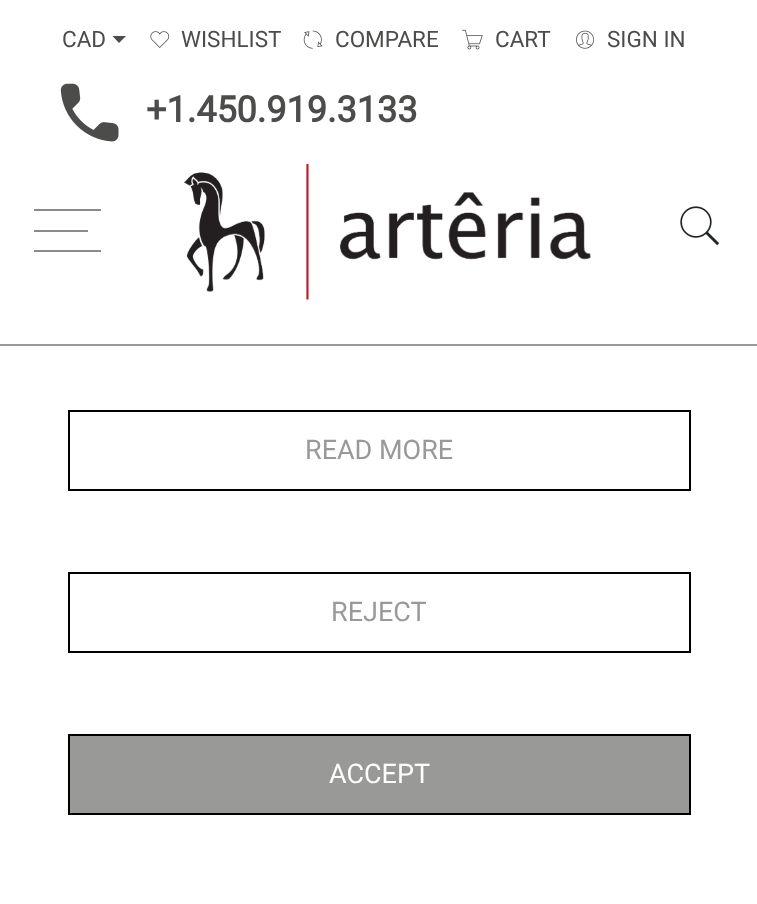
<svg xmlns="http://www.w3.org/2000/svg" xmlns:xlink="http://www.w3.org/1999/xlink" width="757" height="904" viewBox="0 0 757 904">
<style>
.cls-1{font:22.5px Roboto;fill:#4c4c4b}
.cls-2{font:bold 36px Roboto;fill:#4c4c4b}
.cls-3{font:27px Roboto;fill:#999998}
.cls-4{font:27px Roboto;fill:#ffffff}
</style>
<rect width="100%" height="100%" fill="#ffffff"/>
<rect fill="#999999" x="0" y="344" width="757" height="2"/>
<path fill="#4c4c4b" d="M112.5 36H126L119 43Z"/>
<image xlink:href="image0.png" x="150" y="31" width="20" height="17"/>
<image xlink:href="image1.png" x="303" y="30" width="20" height="19"/>
<image xlink:href="image2.png" x="462" y="29" width="21" height="21"/>
<image xlink:href="image3.png" x="576" y="30" width="18" height="19"/>
<image xlink:href="image4.png" x="60" y="83" width="59" height="59"/>
<rect fill="#8b8b8b" x="34" y="209" width="67" height="2"/>
<rect fill="#8b8b8b" x="34" y="250" width="67" height="2"/>
<rect fill="#8b8b8b" x="34" y="230" width="54" height="2"/>
<image xlink:href="image5.png" x="184" y="164" width="407" height="136"/>
<image xlink:href="image6.png" x="680" y="206" width="40" height="40"/>
<rect fill="none" stroke="#000000" stroke-width="2" x="69" y="411" width="621" height="79"/>
<rect fill="none" stroke="#000000" stroke-width="2" x="69" y="573" width="621" height="79"/>
<rect fill="#999998" stroke="#000000" stroke-width="2" x="69" y="735" width="621" height="79"/>
<text class="cls-1" x="62" y="47">CAD</text>
<text class="cls-1" x="181" y="47">WISHLIST</text>
<text class="cls-1" x="335" y="47">COMPARE</text>
<text class="cls-1" x="495" y="47">CART</text>
<text class="cls-1" x="607" y="47">SIGN IN</text>
<text class="cls-2" x="146" y="122">+1.450.919.3133</text>
<text class="cls-3" x="305" y="459">READ MORE</text>
<text class="cls-3" x="331" y="621">REJECT</text>
<text class="cls-4" x="329" y="783">ACCEPT</text>
</svg>
